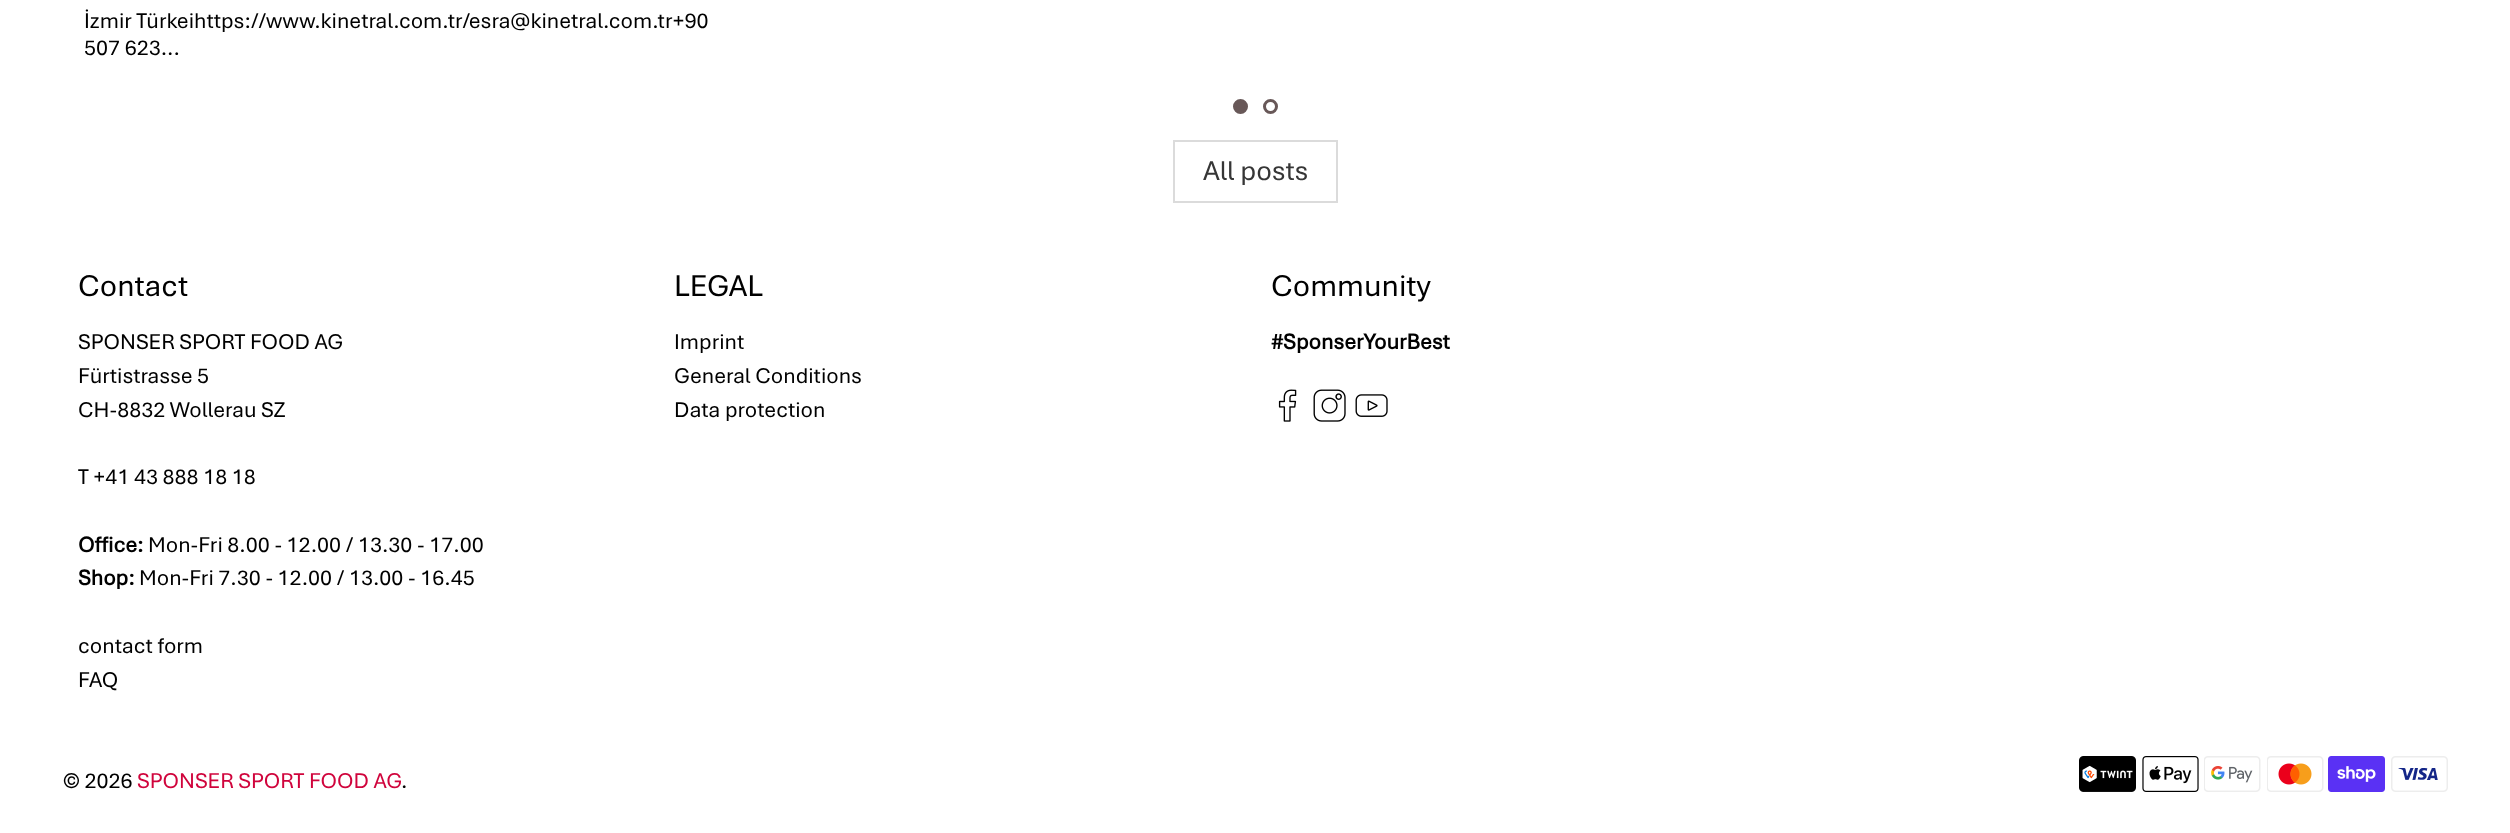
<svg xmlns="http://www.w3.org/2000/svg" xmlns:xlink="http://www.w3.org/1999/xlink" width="2510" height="833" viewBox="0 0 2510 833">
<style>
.cls-1{font:22.5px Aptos;fill:#000000}
.cls-2{font:28.5px Aptos;fill:#363636}
.cls-3{font:31.5px Aptos;fill:#000000}
.cls-4{font:bold 22.5px Aptos;fill:#000000}
.cls-5{font:22.5px Aptos;fill:#d0043c}
</style>
<rect width="100%" height="100%" fill="#ffffff"/>
<circle fill="#685858" stroke="#685858" stroke-width="3" cx="1240.5" cy="106.5" r="6"/>
<circle fill="none" stroke="#685858" stroke-width="3" cx="1270.5" cy="106.5" r="6"/>
<rect fill="none" stroke="#dbdbdb" stroke-width="2" x="1174" y="141" width="163" height="61"/>
<image xlink:href="image0.png" x="1278" y="389" width="19" height="33"/>
<image xlink:href="image1.png" x="1313" y="389" width="33" height="33"/>
<image xlink:href="image2.png" x="1355" y="394" width="33" height="23"/>
<image xlink:href="image3.png" x="2079" y="756" width="57" height="36"/>
<image xlink:href="image4.png" x="2142" y="756" width="57" height="36"/>
<image xlink:href="image5.png" x="2204" y="756" width="57" height="36"/>
<image xlink:href="image6.png" x="2267" y="756" width="57" height="36"/>
<image xlink:href="image7.png" x="2328" y="756" width="57" height="36"/>
<image xlink:href="image8.png" x="2391" y="756" width="57" height="36"/>
<text class="cls-1"><tspan x="84" y="28">İzmir Türkeihttps://www.kinetral.com.tr/esra@kinetral.com.tr+90</tspan><tspan x="84" y="55">507 623...</tspan></text>
<text class="cls-2" x="1203" y="180">All posts</text>
<text class="cls-3" x="78" y="296">Contact</text>
<text class="cls-1"><tspan x="78" y="349">SPONSER SPORT FOOD AG</tspan><tspan x="78" y="383">Fürtistrasse 5</tspan><tspan x="78" y="417">CH-8832 Wollerau SZ</tspan></text>
<text class="cls-1" x="78" y="484">T +41 43 888 18 18</text>
<text class="cls-4" x="78" y="552">Office:</text>
<text class="cls-1" x="148" y="552">Mon-Fri 8.00 - 12.00 / 13.30 - 17.00</text>
<text class="cls-4" x="78" y="585">Shop:</text>
<text class="cls-1" x="139" y="585">Mon-Fri 7.30 - 12.00 / 13.00 - 16.45</text>
<text class="cls-1"><tspan x="78" y="653">contact form</tspan><tspan x="78" y="687">FAQ</tspan></text>
<text class="cls-3" x="674" y="296">LEGAL</text>
<text class="cls-1"><tspan x="674" y="349">Imprint</tspan><tspan x="674" y="383">General Conditions</tspan><tspan x="674" y="417">Data protection</tspan></text>
<text class="cls-3" x="1271" y="296">Community</text>
<text class="cls-4" x="1271" y="349">#SponserYourBest</text>
<text class="cls-1" x="63" y="788">© 2026</text>
<text class="cls-5" x="137" y="788">SPONSER SPORT FOOD AG</text>
<text class="cls-1" x="401" y="788">.</text>
</svg>
